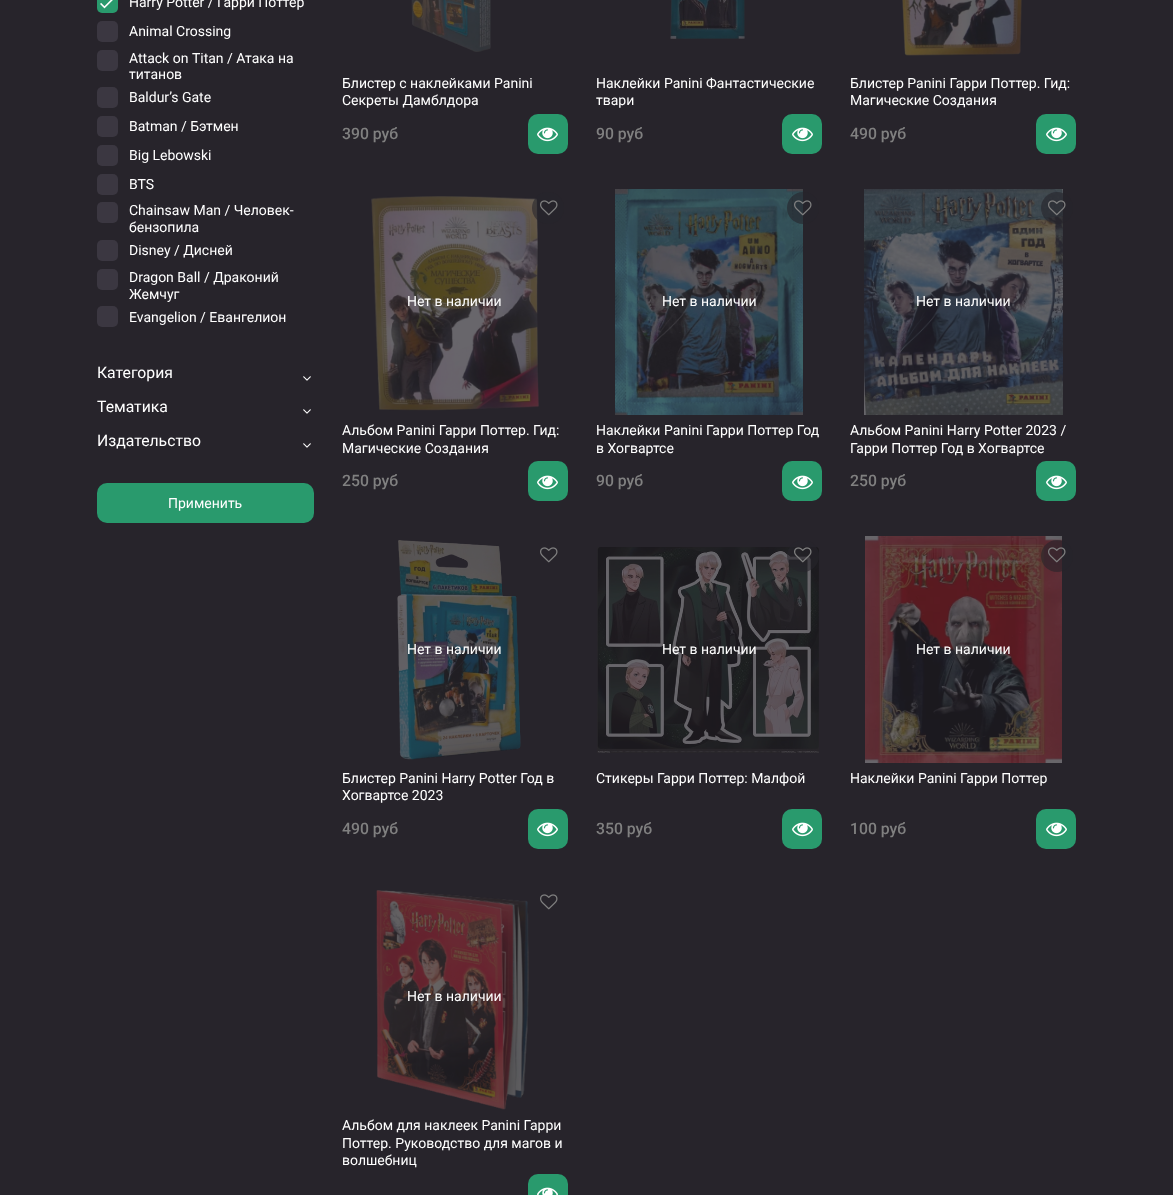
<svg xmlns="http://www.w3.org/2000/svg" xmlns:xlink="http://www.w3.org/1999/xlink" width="1173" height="1195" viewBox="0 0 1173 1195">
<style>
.cls-1{font:14px Roboto;fill:#ffffff}
.cls-2{font:15.75px Roboto;fill:#ffffff}
.cls-3{font:500 15.75px Roboto;fill:#808080}
</style>
<rect width="100%" height="100%" fill="#27242b"/>
<rect fill="#299a6d" x="97" y="-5" width="21" height="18" rx="5"/>
<image xlink:href="image0.png" x="100" y="0" width="13" height="9"/>
<rect fill="#3b3741" x="97" y="21" width="21" height="21" rx="5"/>
<rect fill="#3b3741" x="97" y="50" width="21" height="21" rx="5"/>
<rect fill="#3b3741" x="97" y="87" width="21" height="21" rx="5"/>
<rect fill="#3b3741" x="97" y="116" width="21" height="21" rx="5"/>
<rect fill="#3b3741" x="97" y="145" width="21" height="21" rx="5"/>
<rect fill="#3b3741" x="97" y="174" width="21" height="21" rx="5"/>
<rect fill="#3b3741" x="97" y="202" width="21" height="21" rx="5"/>
<rect fill="#3b3741" x="97" y="240" width="21" height="21" rx="5"/>
<rect fill="#3b3741" x="97" y="269" width="21" height="21" rx="5"/>
<rect fill="#3b3741" x="97" y="306" width="21" height="21" rx="5"/>
<image xlink:href="image1.png" x="303" y="376" width="8" height="5"/>
<image xlink:href="image1.png" x="303" y="409" width="8" height="5"/>
<image xlink:href="image1.png" x="303" y="443" width="8" height="5"/>
<rect fill="#299a6d" x="97" y="483" width="217" height="40" rx="10"/>
<image xlink:href="image2.png" x="411" y="0" width="80" height="52"/>
<rect fill="#299a6d" x="528" y="114" width="40" height="40" rx="10"/>
<image xlink:href="image3.png" x="537" y="127" width="21" height="15"/>
<image xlink:href="image4.png" x="670" y="0" width="75" height="39"/>
<rect fill="#299a6d" x="782" y="114" width="40" height="40" rx="10"/>
<image xlink:href="image3.png" x="792" y="127" width="21" height="15"/>
<image xlink:href="image5.png" x="902" y="0" width="120" height="56"/>
<rect fill="#299a6d" x="1036" y="114" width="40" height="40" rx="10"/>
<image xlink:href="image3.png" x="1046" y="127" width="21" height="15"/>
<image xlink:href="image6.png" x="371" y="196" width="168" height="215"/>
<circle fill="#27242b" fill-opacity="0.6" cx="548" cy="208" r="16"/>
<image xlink:href="image7.png" x="540" y="200" width="18" height="16"/>
<rect fill="#299a6d" x="528" y="461" width="40" height="40" rx="10"/>
<image xlink:href="image3.png" x="537" y="475" width="21" height="15"/>
<image xlink:href="image8.png" x="615" y="189" width="188" height="226"/>
<circle fill="#27242b" fill-opacity="0.6" cx="803" cy="208" r="16"/>
<image xlink:href="image9.png" x="794" y="200" width="18" height="16"/>
<rect fill="#299a6d" x="782" y="461" width="40" height="40" rx="10"/>
<image xlink:href="image3.png" x="792" y="475" width="21" height="15"/>
<image xlink:href="image10.png" x="864" y="189" width="199" height="226"/>
<circle fill="#27242b" fill-opacity="0.6" cx="1057" cy="208" r="16"/>
<image xlink:href="image11.png" x="1048" y="200" width="18" height="16"/>
<rect fill="#299a6d" x="1036" y="461" width="40" height="40" rx="10"/>
<image xlink:href="image3.png" x="1046" y="475" width="21" height="15"/>
<image xlink:href="image12.png" x="397" y="540" width="124" height="220"/>
<image xlink:href="image7.png" x="540" y="547" width="18" height="16"/>
<rect fill="#299a6d" x="528" y="809" width="40" height="40" rx="10"/>
<image xlink:href="image3.png" x="537" y="822" width="21" height="15"/>
<image xlink:href="image14.png" x="597" y="547" width="222" height="206"/>
<circle fill="#27242b" fill-opacity="0.6" cx="803" cy="556" r="16"/>
<image xlink:href="image13.png" x="794" y="547" width="18" height="16"/>
<rect fill="#299a6d" x="782" y="809" width="40" height="40" rx="10"/>
<image xlink:href="image3.png" x="792" y="822" width="21" height="15"/>
<image xlink:href="image15.png" x="865" y="536" width="197" height="227"/>
<circle fill="#27242b" fill-opacity="0.6" cx="1057" cy="556" r="16"/>
<image xlink:href="image16.png" x="1048" y="547" width="18" height="16"/>
<rect fill="#299a6d" x="1036" y="809" width="40" height="40" rx="10"/>
<image xlink:href="image3.png" x="1046" y="822" width="21" height="15"/>
<image xlink:href="image17.png" x="376" y="890" width="153" height="220"/>
<image xlink:href="image7.png" x="540" y="894" width="18" height="16"/>
<rect fill="#299a6d" x="528" y="1174" width="40" height="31" rx="10"/>
<image xlink:href="image18.png" x="537" y="1187" width="21" height="8"/>
<text class="cls-1" x="129" y="7">Harry Potter / Гарри Поттер</text>
<text class="cls-1"><tspan x="129" y="36">Animal Crossing</tspan><tspan x="129" y="63">Attack on Titan / Атака на</tspan><tspan x="129" y="79">титанов</tspan><tspan x="129" y="102">Baldur’s Gate</tspan></text>
<text class="cls-1" x="129" y="131">Batman / Бэтмен</text>
<text class="cls-1" x="129" y="160">Big Lebowski</text>
<text class="cls-1"><tspan x="129" y="189">BTS</tspan><tspan x="129" y="215">Chainsaw Man / Человек-</tspan><tspan x="129" y="232">бензопила</tspan><tspan x="129" y="255">Disney / Дисней</tspan><tspan x="129" y="282">Dragon Ball / Драконий</tspan><tspan x="129" y="299">Жемчуг</tspan><tspan x="129" y="322">Evangelion / Евангелион</tspan></text>
<text class="cls-2" x="97" y="378">Категория</text>
<text class="cls-2" x="97" y="412">Тематика</text>
<text class="cls-2" x="97" y="446">Издательство</text>
<text class="cls-1" x="168" y="508">Применить</text>
<text class="cls-1"><tspan x="342" y="88">Блистер с наклейками Panini</tspan><tspan x="342" y="105">Секреты Дамблдора</tspan></text>
<text class="cls-3" x="342" y="139">390 руб</text>
<text class="cls-1"><tspan x="596" y="88">Наклейки Panini Фантастические</tspan><tspan x="596" y="105">твари</tspan></text>
<text class="cls-3" x="596" y="139">90 руб</text>
<text class="cls-1"><tspan x="850" y="88">Блистер Panini Гарри Поттер. Гид:</tspan><tspan x="850" y="105">Магические Создания</tspan></text>
<text class="cls-3" x="850" y="139">490 руб</text>
<text class="cls-1" x="407" y="306">Нет в наличии</text>
<text class="cls-1"><tspan x="342" y="435">Альбом Panini Гарри Поттер. Гид:</tspan><tspan x="342" y="453">Магические Создания</tspan></text>
<text class="cls-3" x="342" y="486">250 руб</text>
<text class="cls-1" x="662" y="306">Нет в наличии</text>
<text class="cls-1"><tspan x="596" y="435">Наклейки Panini Гарри Поттер Год</tspan><tspan x="596" y="453">в Хогвартсе</tspan></text>
<text class="cls-3" x="596" y="486">90 руб</text>
<text class="cls-1" x="916" y="306">Нет в наличии</text>
<text class="cls-1"><tspan x="850" y="435">Альбом Panini Harry Potter 2023 /</tspan><tspan x="850" y="453">Гарри Поттер Год в Хогвартсе</tspan></text>
<text class="cls-3" x="850" y="486">250 руб</text>
<text class="cls-1" x="407" y="654">Нет в наличии</text>
<text class="cls-1"><tspan x="342" y="783">Блистер Panini Harry Potter Год в</tspan><tspan x="342" y="800">Хогвартсе 2023</tspan></text>
<text class="cls-3" x="342" y="834">490 руб</text>
<text class="cls-1" x="662" y="654">Нет в наличии</text>
<text class="cls-1" x="596" y="783">Стикеры Гарри Поттер: Малфой</text>
<text class="cls-3" x="596" y="834">350 руб</text>
<text class="cls-1" x="916" y="654">Нет в наличии</text>
<text class="cls-1" x="850" y="783">Наклейки Panini Гарри Поттер</text>
<text class="cls-3" x="850" y="834">100 руб</text>
<text class="cls-1" x="407" y="1001">Нет в наличии</text>
<text class="cls-1"><tspan x="342" y="1130">Альбом для наклеек Panini Гарри</tspan><tspan x="342" y="1148">Поттер. Руководство для магов и</tspan><tspan x="342" y="1165">волшебниц</tspan></text>
</svg>
